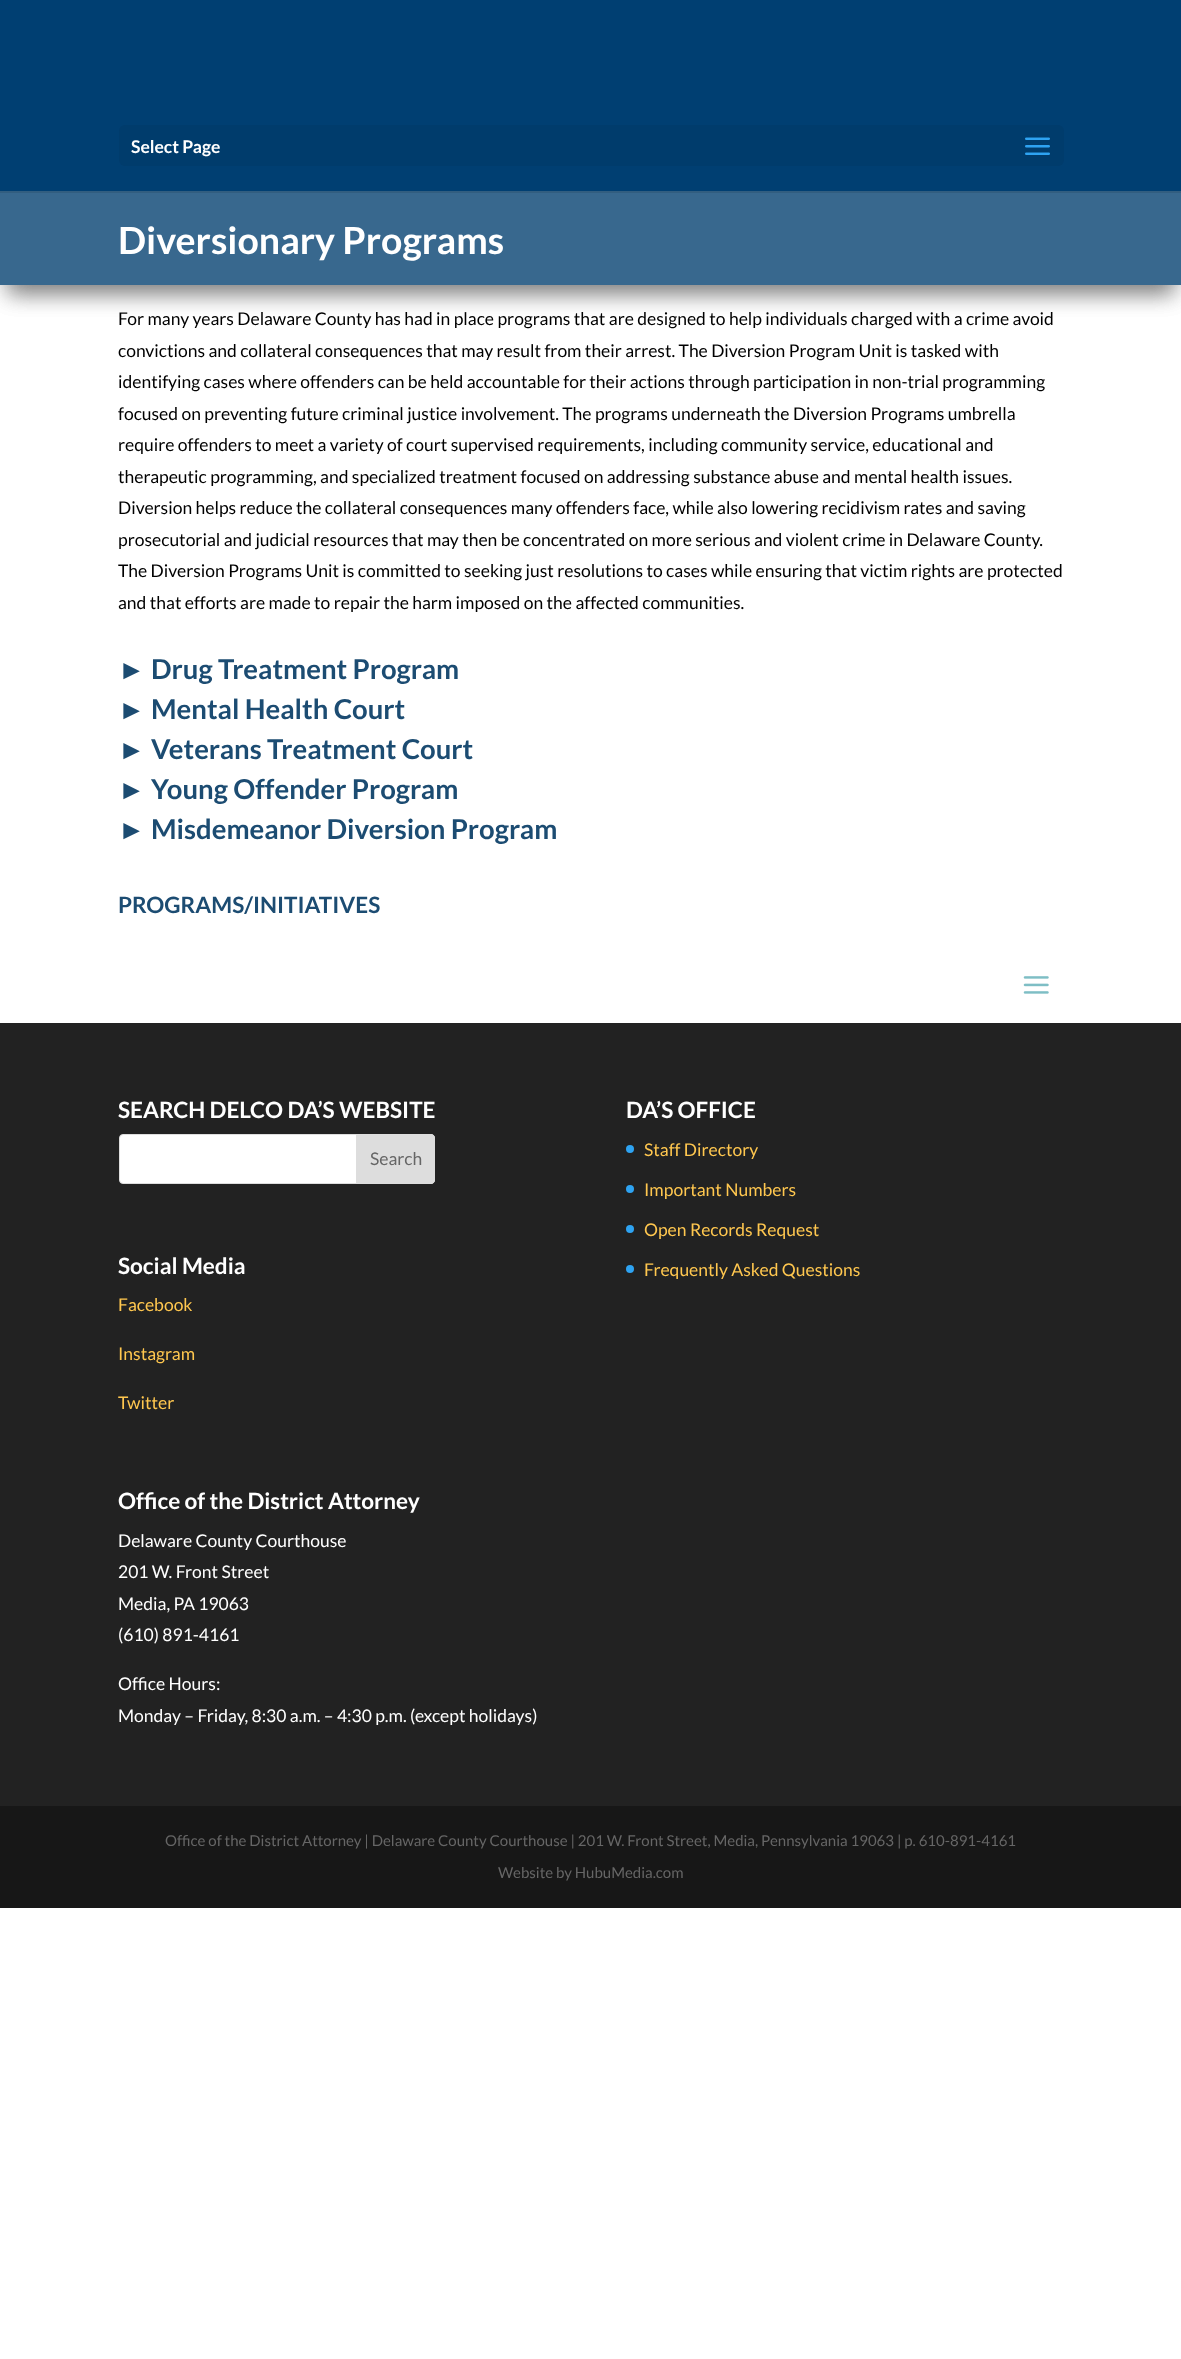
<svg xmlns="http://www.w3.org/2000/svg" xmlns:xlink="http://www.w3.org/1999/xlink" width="1181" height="2359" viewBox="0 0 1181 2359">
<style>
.cls-1{font:bold 17.5px Lato;fill:#ffffff}
.cls-2{font:bold 37.5px Lato;fill:#ffffff}
.cls-3{font:17.5px Lato;fill:#000000}
.cls-4{font:bold 27.5px Liberation Sans;fill:#1c4c72}
.cls-5{font:bold 27.5px Lato;fill:#1c4c72}
.cls-6{font:bold 22.5px Lato;fill:#1c4c72}
.cls-7{font:bold 22.5px Lato;fill:#ffffff}
.cls-8{font:17.5px Lato;fill:#666666}
.cls-9{font:17.5px Lato;fill:#ffc74f}
.cls-10{font:17.5px Lato;fill:#ffffff}
.cls-11{font:15px Lato;fill:#666666}
</style>
<rect width="100%" height="100%" fill="#ffffff"/>
<rect fill="#000000" fill-opacity="0.3" filter="blur(11px)" x="8" y="213" width="1166" height="80"/>
<rect fill="#000000" fill-opacity="0.3" filter="blur(11px)" x="8" y="213" width="1166" height="80"/>
<rect fill="#325e80" x="0" y="191" width="1181" height="2"/>
<rect fill="#003f72" x="0" y="0" width="1181" height="191"/>
<rect fill="#003c6c" x="119" y="125" width="945" height="41" rx="6"/>
<image xlink:href="image0.png" x="1025" y="137" width="25" height="18"/>
<rect fill="#38688e" x="0" y="193" width="1181" height="92"/>
<image xlink:href="image1.png" x="1023" y="976" width="26" height="18"/>
<rect fill="#222222" x="0" y="1023" width="1181" height="783"/>
<rect fill="#ffffff" stroke="#dddddd" x="119.5" y="1134.5" width="315" height="49" rx="3.5"/>
<path fill="#dddddd" stroke="#dddddd" d="M356.5 1134.5H431C433 1134.5 434.5 1136 434.5 1138V1180C434.5 1182 433 1183.5 431 1183.5H356.5Z"/>
<circle fill="#2ea3f2" cx="630" cy="1149" r="4"/>
<circle fill="#2ea3f2" cx="630" cy="1189" r="4"/>
<circle fill="#2ea3f2" cx="630" cy="1229" r="4"/>
<circle fill="#2ea3f2" cx="630" cy="1269" r="4"/>
<rect fill="#171717" x="0" y="1806" width="1181" height="102"/>
<text class="cls-1" x="131" y="153">Select Page</text>
<text class="cls-2" x="118" y="254">Diversionary Programs</text>
<text class="cls-3"><tspan x="118" y="325">For many years Delaware County has had in place programs that are designed to help individuals charged with a crime avoid</tspan><tspan x="118" y="357">convictions and collateral consequences that may result from their arrest. The Diversion Program Unit is tasked with</tspan><tspan x="118" y="388">identifying cases where offenders can be held accountable for their actions through participation in non-trial programming</tspan><tspan x="118" y="420">focused on preventing future criminal justice involvement. The programs underneath the Diversion Programs umbrella</tspan><tspan x="118" y="451">require offenders to meet a variety of court supervised requirements, including community service, educational and</tspan><tspan x="118" y="483">therapeutic programming, and specialized treatment focused on addressing substance abuse and mental health issues.</tspan><tspan x="118" y="514">Diversion helps reduce the collateral consequences many offenders face, while also lowering recidivism rates and saving</tspan><tspan x="118" y="546">prosecutorial and judicial resources that may then be concentrated on more serious and violent crime in Delaware County.</tspan><tspan x="118" y="577">The Diversion Programs Unit is committed to seeking just resolutions to cases while ensuring that victim rights are protected</tspan><tspan x="118" y="609">and that efforts are made to repair the harm imposed on the affected communities.</tspan></text>
<text class="cls-4" x="118" y="679">►</text>
<text class="cls-5" x="151" y="679">Drug Treatment Program</text>
<text class="cls-4" x="118" y="719">►</text>
<text class="cls-5" x="151" y="719">Mental Health Court</text>
<text class="cls-4" x="118" y="759">►</text>
<text class="cls-5" x="151" y="759">Veterans Treatment Court</text>
<text class="cls-4" x="118" y="799">►</text>
<text class="cls-5" x="151" y="799">Young Offender Program</text>
<text class="cls-4" x="118" y="839">►</text>
<text class="cls-5" x="151" y="839">Misdemeanor Diversion Program</text>
<text class="cls-6" x="118" y="913">PROGRAMS/INITIATIVES</text>
<text class="cls-7" x="118" y="1118">SEARCH DELCO DA’S WEBSITE</text>
<text class="cls-8" x="370" y="1165">Search</text>
<text class="cls-7" x="118" y="1274">Social Media</text>
<text class="cls-9" x="118" y="1311">Facebook</text>
<text class="cls-9" x="118" y="1360">Instagram</text>
<text class="cls-9" x="118" y="1409">Twitter</text>
<text class="cls-7" x="626" y="1118">DA’S OFFICE</text>
<text class="cls-9" x="644" y="1156">Staff Directory</text>
<text class="cls-9" x="644" y="1196">Important Numbers</text>
<text class="cls-9" x="644" y="1236">Open Records Request</text>
<text class="cls-9" x="644" y="1276">Frequently Asked Questions</text>
<text class="cls-7" x="118" y="1509">Office of the District Attorney</text>
<text class="cls-10"><tspan x="118" y="1547">Delaware County Courthouse</tspan><tspan x="118" y="1578">201 W. Front Street</tspan><tspan x="118" y="1610">Media, PA 19063</tspan><tspan x="118" y="1641">(610) 891-4161</tspan></text>
<text class="cls-10"><tspan x="118" y="1690">Office Hours:</tspan><tspan x="118" y="1722">Monday – Friday, 8:30 a.m. – 4:30 p.m. (except holidays)</tspan></text>
<text class="cls-11" x="165" y="1846">Office of the District Attorney | Delaware County Courthouse | 201 W. Front Street, Media, Pennsylvania 19063 | p. 610-891-4161</text>
<text class="cls-11" x="498" y="1878">Website by HubuMedia.com</text>
</svg>
